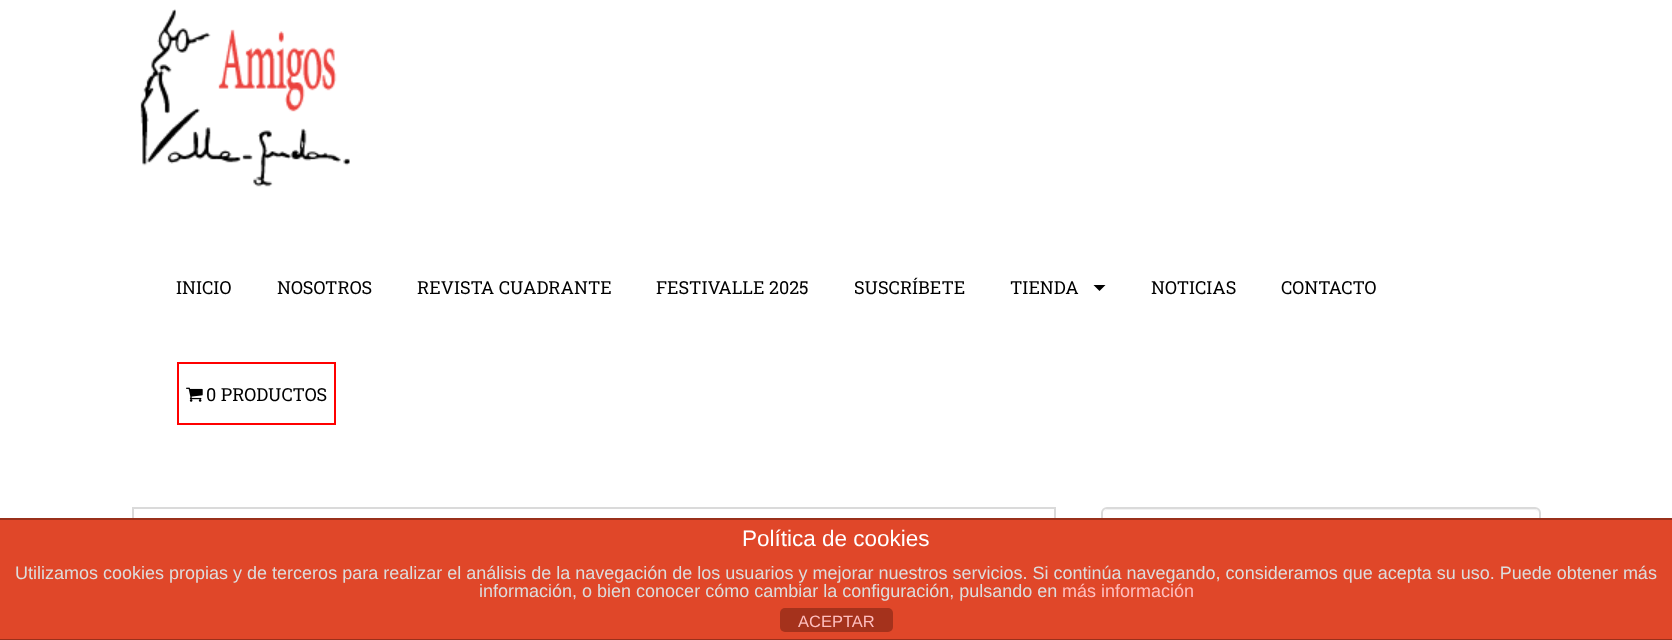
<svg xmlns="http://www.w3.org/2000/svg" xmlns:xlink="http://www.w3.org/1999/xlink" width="1672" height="640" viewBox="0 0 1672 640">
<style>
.cls-1{font:18px Roboto Slab;fill:#000000}
.cls-2{font:22.5px Liberation Sans;fill:#ffffff}
.cls-3{font:18px Liberation Sans;fill:#dddddd}
.cls-4{font:18px Liberation Sans;fill:#febebe}
.cls-5{font:16.5px Liberation Sans;fill:#febebe}
</style>
<rect width="100%" height="100%" fill="#ffffff"/>
<image xlink:href="image0.png" x="140" y="9" width="210" height="178"/>
<path fill="#000000" d="M1093.5 285H1105.5L1099.5 291Z"/>
<rect fill="none" stroke="#ff0000" stroke-width="2" x="178" y="363" width="157" height="61"/>
<image xlink:href="image1.png" x="186" y="387" width="17" height="15"/>
<rect fill="none" stroke="#dadada" stroke-width="2" x="133" y="508" width="922" height="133"/>
<path fill="#f2f2f2" d="M1107 510H1534C1537 510 1539 512 1539 514C1539 511 1537 509 1534 509H1108C1106 509 1105 510 1104 511Z"/>
<rect fill="none" stroke="#dadada" stroke-width="2" x="1102" y="508" width="438" height="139" rx="5"/>
<rect fill="#e04729" x="0" y="520" width="1672" height="119"/>
<rect fill="#99301b" x="0" y="518" width="1672" height="2"/>
<rect fill="#99301b" x="0" y="639" width="1672" height="1"/>
<rect fill="#a5321c" x="780" y="608" width="113" height="24" rx="5"/>
<text class="cls-1" x="176" y="294">INICIO</text>
<text class="cls-1" x="277" y="294">NOSOTROS</text>
<text class="cls-1" x="417" y="294">REVISTA CUADRANTE</text>
<text class="cls-1" x="656" y="294">FESTIVALLE 2025</text>
<text class="cls-1" x="854" y="294">SUSCRÍBETE</text>
<text class="cls-1" x="1010" y="294">TIENDA</text>
<text class="cls-1" x="1151" y="294">NOTICIAS</text>
<text class="cls-1" x="1281" y="294">CONTACTO</text>
<text class="cls-1" x="206" y="401">0 PRODUCTOS</text>
<text class="cls-2" x="742" y="546">Política de cookies</text>
<text class="cls-3" x="15" y="579">Utilizamos cookies propias y de terceros para realizar el análisis de la navegación de los usuarios y mejorar nuestros servicios. Si continúa navegando, consideramos que acepta su uso. Puede obtener más</text>
<text class="cls-3" x="479" y="597">información, o bien conocer cómo cambiar la configuración, pulsando en</text>
<text class="cls-4" x="1062" y="597">más información</text>
<text class="cls-5" x="798" y="627">ACEPTAR</text>
</svg>
